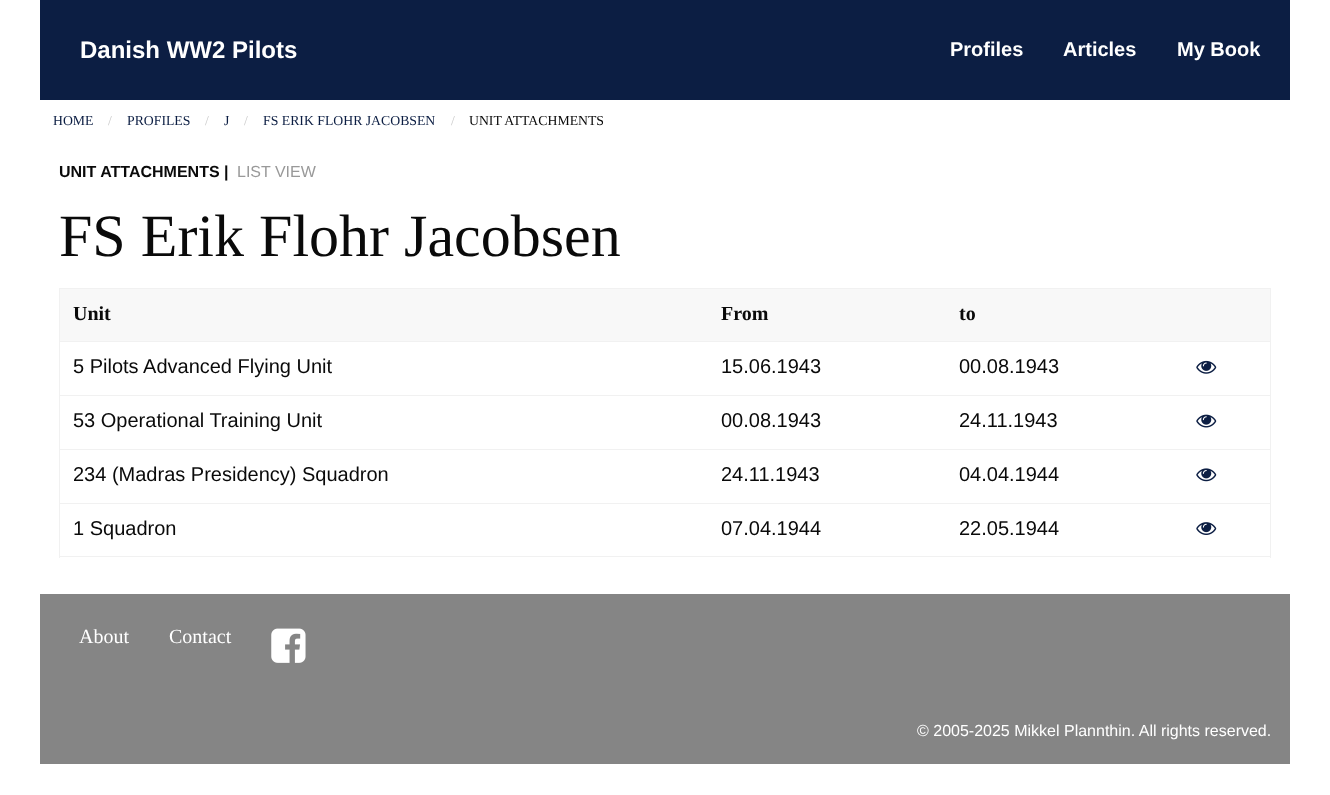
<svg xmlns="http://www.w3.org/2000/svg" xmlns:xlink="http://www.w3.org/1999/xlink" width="1330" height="795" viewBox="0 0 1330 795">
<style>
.cls-1{font:bold 24px Liberation Sans;fill:#ffffff}
.cls-2{font:bold 20px Liberation Sans;fill:#ffffff}
.cls-3{font:13.75px Liberation Serif;fill:#0c1e43}
.cls-4{font:13.75px Liberation Serif;fill:#cacaca}
.cls-5{font:13.75px Liberation Serif;fill:#0a0a0a}
.cls-6{font:bold 16px Liberation Sans;fill:#0a0a0a}
.cls-7{font:16px Liberation Sans;fill:#999999}
.cls-8{font:60px Liberation Serif;fill:#0a0a0a}
.cls-9{font:bold 20px Liberation Serif;fill:#0a0a0a}
.cls-10{font:20px Liberation Sans;fill:#0a0a0a}
.cls-11{font:20px Liberation Serif;fill:#ffffff}
.cls-12{font:16px Liberation Sans;fill:#ffffff}
</style>
<rect width="100%" height="100%" fill="#ffffff"/>
<rect fill="#0c1e43" x="40" y="0" width="1250" height="100"/>
<rect fill="#f8f8f8" x="60" y="289" width="1210" height="52"/>
<rect fill="#f1f1f1" x="59" y="288" width="1212" height="1"/>
<rect fill="#f1f1f1" x="59" y="341" width="1212" height="1"/>
<rect fill="#f1f1f1" x="1270" y="341" width="1" height="217"/>
<rect fill="#f1f1f1" x="1270" y="288" width="1" height="55"/>
<rect fill="#f1f1f1" x="59" y="556" width="1212" height="1"/>
<rect fill="#f1f1f1" x="59" y="341" width="1" height="217"/>
<rect fill="#f1f1f1" x="59" y="288" width="1" height="55"/>
<rect fill="#f1f1f1" x="59" y="395" width="1212" height="1"/>
<image xlink:href="image0.png" x="1196" y="360" width="21" height="14"/>
<rect fill="#f1f1f1" x="59" y="449" width="1212" height="1"/>
<image xlink:href="image1.png" x="1196" y="414" width="21" height="14"/>
<rect fill="#f1f1f1" x="59" y="503" width="1212" height="1"/>
<image xlink:href="image2.png" x="1196" y="468" width="21" height="14"/>
<image xlink:href="image3.png" x="1196" y="522" width="21" height="13"/>
<rect fill="#858585" x="40" y="594" width="1250" height="170"/>
<image xlink:href="image4.png" x="271" y="628" width="35" height="35"/>
<text class="cls-1" x="80" y="58">Danish WW2 Pilots</text>
<text class="cls-2" x="950" y="56">Profiles</text>
<text class="cls-2" x="1063" y="56">Articles</text>
<text class="cls-2" x="1177" y="56">My Book</text>
<text class="cls-3" x="53" y="125">HOME</text>
<text class="cls-4" x="108" y="125">/</text>
<text class="cls-3" x="127" y="125">PROFILES</text>
<text class="cls-4" x="205" y="125">/</text>
<text class="cls-3" x="224" y="125">J</text>
<text class="cls-4" x="244" y="125">/</text>
<text class="cls-3" x="263" y="125">FS ERIK FLOHR JACOBSEN</text>
<text class="cls-4" x="451" y="125">/</text>
<text class="cls-5" x="469" y="125">UNIT ATTACHMENTS</text>
<text class="cls-6" x="59" y="177">UNIT ATTACHMENTS |</text>
<text class="cls-7" x="237" y="177">LIST VIEW</text>
<text class="cls-8" x="59" y="256">FS Erik Flohr Jacobsen</text>
<text class="cls-9" x="73" y="320">Unit</text>
<text class="cls-9" x="721" y="320">From</text>
<text class="cls-9" x="959" y="320">to</text>
<text class="cls-10" x="73" y="373">5 Pilots Advanced Flying Unit</text>
<text class="cls-10" x="721" y="373">15.06.1943</text>
<text class="cls-10" x="959" y="373">00.08.1943</text>
<text class="cls-10" x="73" y="427">53 Operational Training Unit</text>
<text class="cls-10" x="721" y="427">00.08.1943</text>
<text class="cls-10" x="959" y="427">24.11.1943</text>
<text class="cls-10" x="73" y="481">234 (Madras Presidency) Squadron</text>
<text class="cls-10" x="721" y="481">24.11.1943</text>
<text class="cls-10" x="959" y="481">04.04.1944</text>
<text class="cls-10" x="73" y="535">1 Squadron</text>
<text class="cls-10" x="721" y="535">07.04.1944</text>
<text class="cls-10" x="959" y="535">22.05.1944</text>
<text class="cls-11" x="79" y="643">About</text>
<text class="cls-11" x="169" y="643">Contact</text>
<text class="cls-12" x="917" y="736">© 2005-2025 Mikkel Plannthin. All rights reserved.</text>
</svg>
